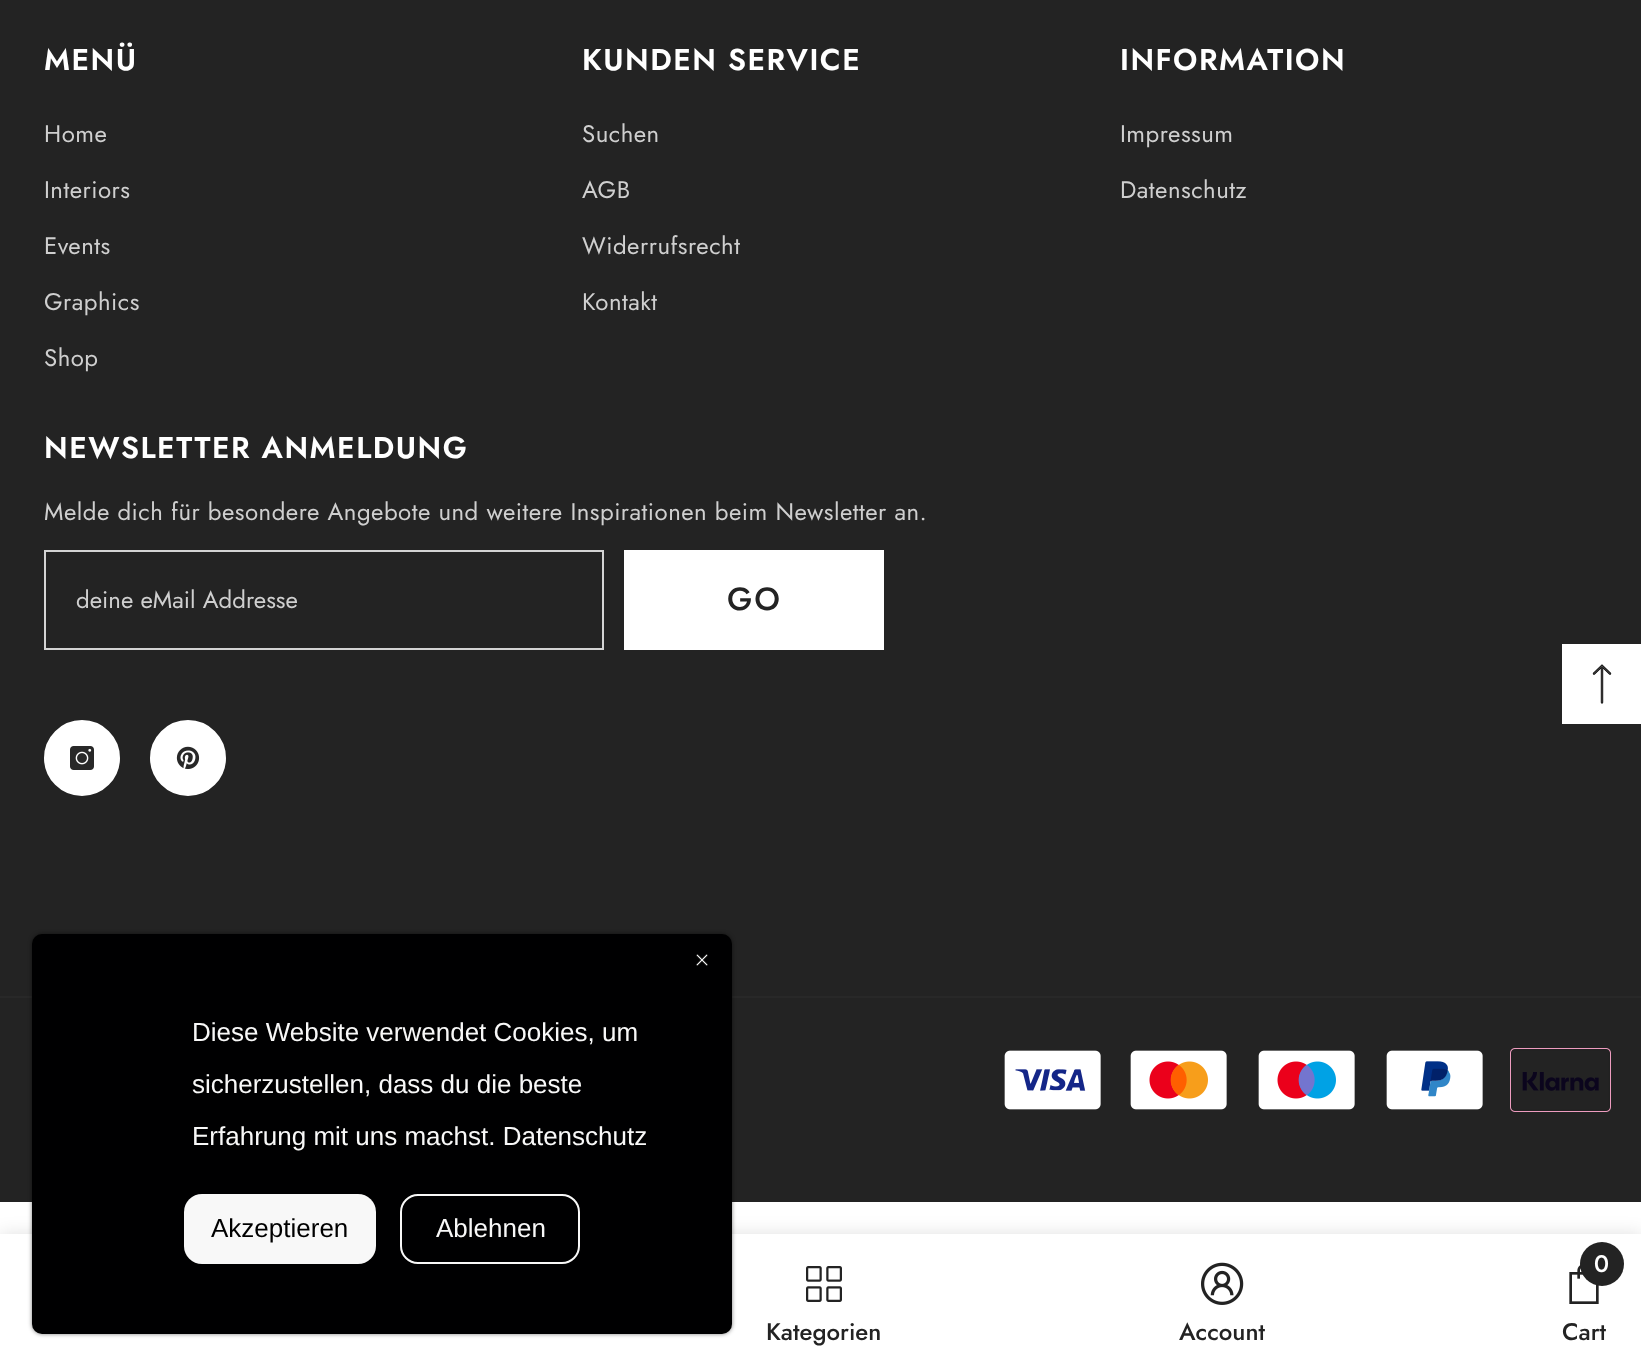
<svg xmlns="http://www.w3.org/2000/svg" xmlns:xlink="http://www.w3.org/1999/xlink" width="1641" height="1366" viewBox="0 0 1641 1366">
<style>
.cls-1{font:600 30px Jost;letter-spacing:1.5px;fill:#ffffff}
.cls-2{font:24px Jost;letter-spacing:0.48px;fill:#cfcfcf}
.cls-3{font:24px Jost;fill:#cfcfcf}
.cls-4{font:500 32px Jost;letter-spacing:2px;fill:#232323}
.cls-5{font:500 24px Jost;fill:#232323}
.cls-6{font:500 24px Jost;fill:#ffffff}
.cls-7{font:26px Liberation Sans;fill:#f8f8f8}
.cls-8{font:26px Liberation Sans;fill:#000000}
</style>
<rect width="100%" height="100%" fill="#ffffff"/>
<rect fill="#232323" x="0" y="0" width="1641" height="996"/>
<rect fill="none" stroke="#d3d3d3" stroke-width="2" x="45" y="551" width="558" height="98"/>
<rect fill="#ffffff" x="624" y="550" width="260" height="100"/>
<circle fill="#ffffff" stroke="#ffffff" stroke-width="2" cx="82" cy="758" r="37"/>
<image xlink:href="image0.png" x="70" y="746" width="24" height="24"/>
<circle fill="#ffffff" stroke="#ffffff" stroke-width="2" cx="188" cy="758" r="37"/>
<image xlink:href="image1.png" x="176" y="746" width="24" height="23"/>
<rect fill="#232323" x="0" y="998" width="1641" height="204"/>
<rect fill="#282828" x="0" y="996" width="1641" height="2"/>
<image xlink:href="image2.png" x="1004" y="1050" width="97" height="60"/>
<image xlink:href="image3.png" x="1130" y="1050" width="97" height="60"/>
<image xlink:href="image4.png" x="1258" y="1050" width="97" height="60"/>
<image xlink:href="image5.png" x="1386" y="1050" width="97" height="60"/>
<image xlink:href="image6.png" x="1510" y="1048" width="101" height="64"/>
<rect fill="#000000" fill-opacity="0.12" filter="blur(9px)" x="0" y="1234" width="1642" height="132"/>
<rect fill="#ffffff" x="0" y="1234" width="1641" height="132"/>
<image xlink:href="image7.png" x="806" y="1266" width="36" height="36"/>
<image xlink:href="image8.png" x="1201" y="1262" width="43" height="43"/>
<image xlink:href="image9.png" x="1569" y="1264" width="30" height="40"/>
<circle fill="#232323" cx="1602" cy="1264" r="22"/>
<rect fill="#ffffff" x="1562" y="644" width="79" height="80"/>
<image xlink:href="image10.png" x="1592" y="664" width="20" height="40"/>
<rect fill="#000000" fill-opacity="0.5" filter="blur(2px)" x="32" y="934" width="700" height="400" rx="10"/>
<rect fill="#000001" x="32" y="934" width="700" height="400" rx="10"/>
<image xlink:href="image11.png" x="696" y="954" width="12" height="12"/>
<rect fill="#f8f8f8" x="184" y="1194" width="192" height="70" rx="18"/>
<rect fill="none" stroke="#f8f8f8" stroke-width="2" x="401" y="1195" width="178" height="68" rx="17"/>
<text class="cls-1" x="44" y="70">MENÜ</text>
<text class="cls-2" x="44" y="142">Home</text>
<text class="cls-2" x="44" y="198">Interiors</text>
<text class="cls-2" x="44" y="254">Events</text>
<text class="cls-2" x="44" y="310">Graphics</text>
<text class="cls-2" x="44" y="366">Shop</text>
<text class="cls-1" x="582" y="70">KUNDEN SERVICE</text>
<text class="cls-2" x="582" y="142">Suchen</text>
<text class="cls-2" x="582" y="198">AGB</text>
<text class="cls-2" x="582" y="254">Widerrufsrecht</text>
<text class="cls-2" x="582" y="310">Kontakt</text>
<text class="cls-1" x="1120" y="70">INFORMATION</text>
<text class="cls-2" x="1120" y="142">Impressum</text>
<text class="cls-2" x="1120" y="198">Datenschutz</text>
<text class="cls-1" x="44" y="458">NEWSLETTER ANMELDUNG</text>
<text class="cls-2" x="44" y="520">Melde dich für besondere Angebote und weitere Inspirationen beim Newsletter an.</text>
<text class="cls-3" x="76" y="608">deine eMail Addresse</text>
<text class="cls-4" x="727" y="610">GO</text>
<text class="cls-5" x="766" y="1340">Kategorien</text>
<text class="cls-5" x="1179" y="1340">Account</text>
<text class="cls-6" x="1594" y="1272">0</text>
<text class="cls-5" x="1562" y="1340">Cart</text>
<text class="cls-7" x="192" y="1041">Diese Website verwendet Cookies, um</text>
<text class="cls-7" x="192" y="1093">sicherzustellen, dass du die beste</text>
<text class="cls-7" x="192" y="1145">Erfahrung mit uns machst. Datenschutz</text>
<text class="cls-8" x="211" y="1237">Akzeptieren</text>
<text class="cls-7" x="436" y="1237">Ablehnen</text>
</svg>
